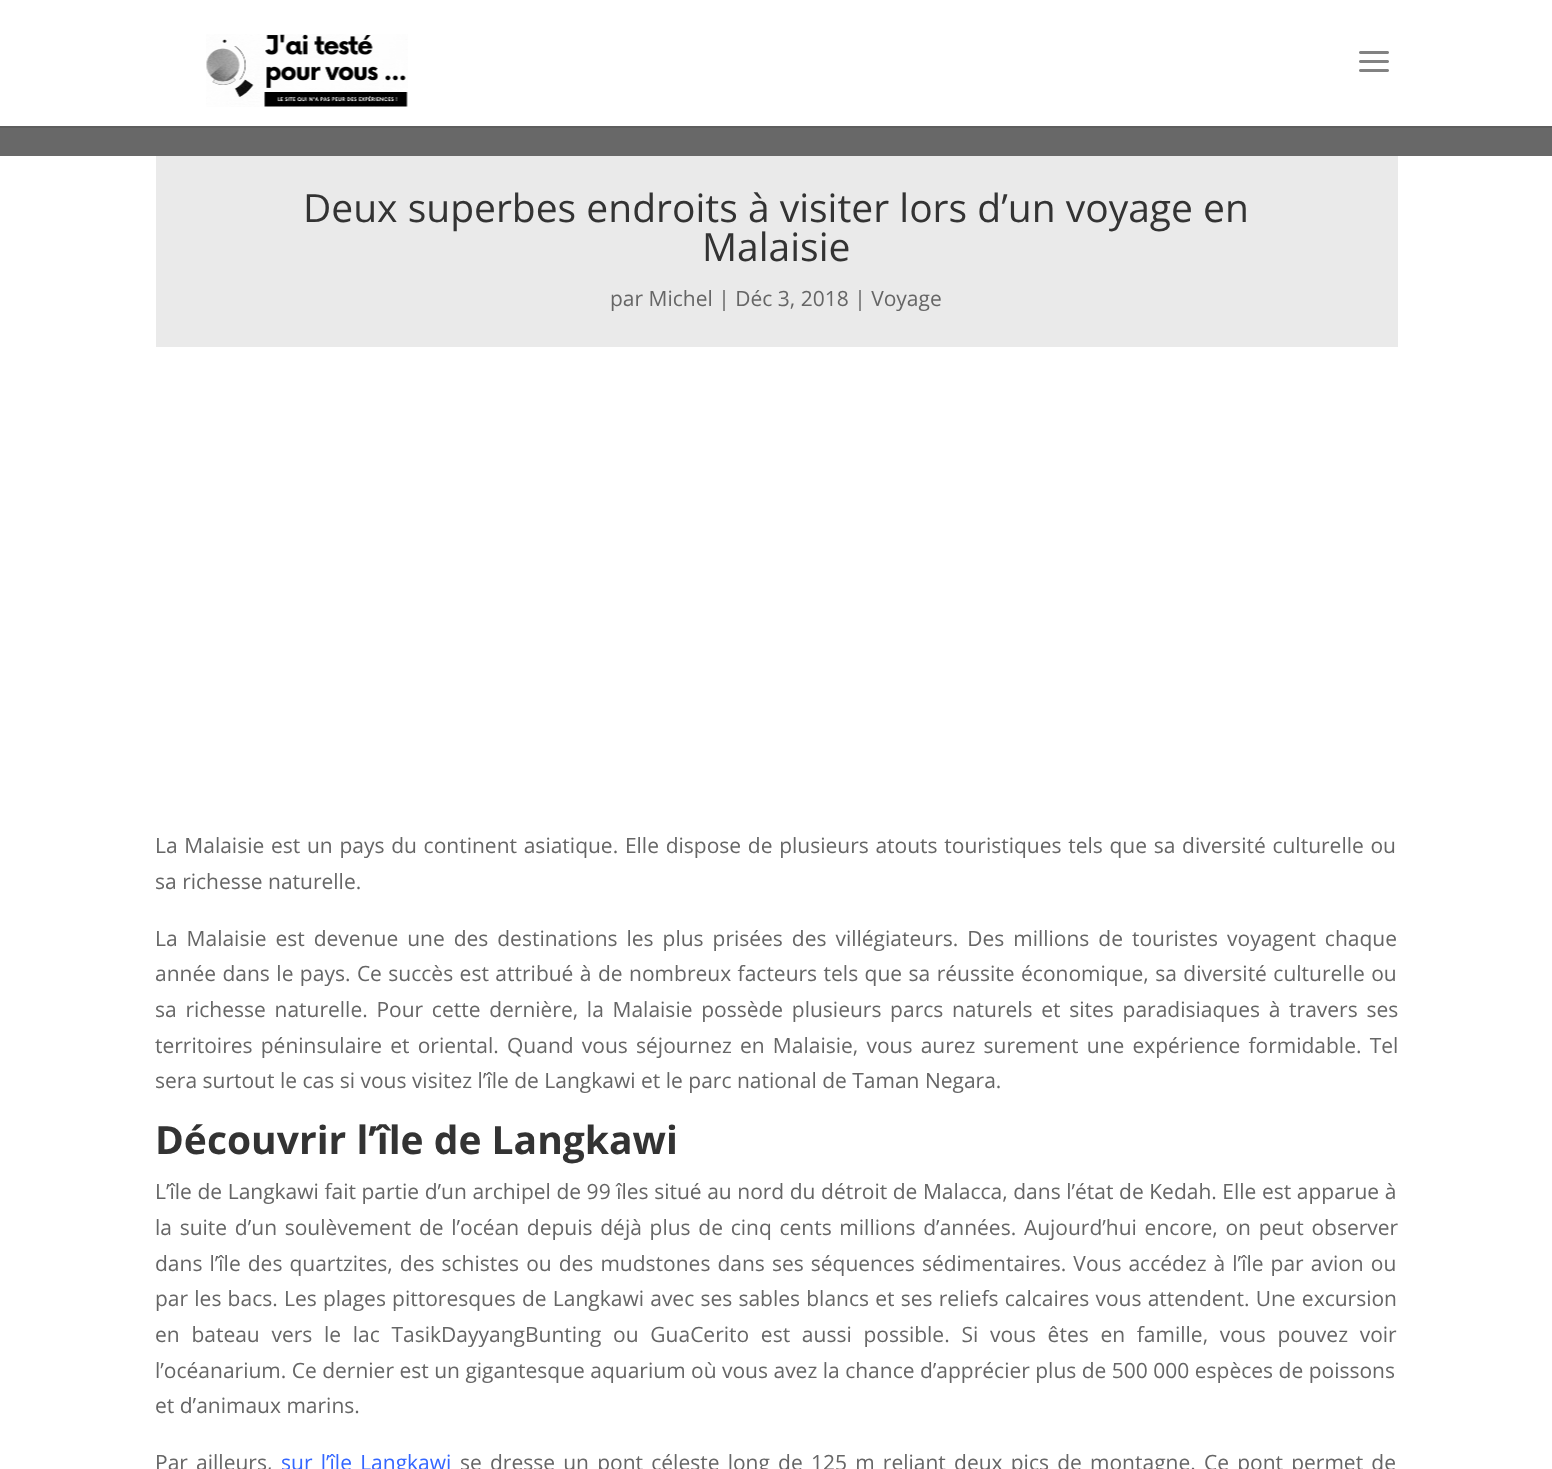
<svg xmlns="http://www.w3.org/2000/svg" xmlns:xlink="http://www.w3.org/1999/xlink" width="1552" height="1469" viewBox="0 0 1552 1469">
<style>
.cls-1{font:39px Open Sans;fill:#333333}
.cls-2{font:21px Open Sans;fill:#666666}
.cls-3{font:bold 39px Open Sans;fill:#333333}
.cls-4{font:21px Open Sans;fill:#3366ff}
</style>
<rect width="100%" height="100%" fill="#686868"/>
<path fill="#5e5e5e" d="M0 126V128H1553V2H1552V126Z"/>
<rect fill="#ffffff" x="0" y="0" width="1552" height="126"/>
<image xlink:href="image0.png" x="206" y="34" width="202" height="73"/>
<image xlink:href="image1.png" x="1359" y="51" width="30" height="21"/>
<rect fill="#ffffff" x="0" y="156" width="1552" height="1313"/>
<rect fill="#eaeaea" x="156" y="156" width="1242" height="191"/>
<text class="cls-1" x="303" y="222">Deux superbes endroits à visiter lors d’un voyage en</text>
<text class="cls-1" x="702" y="261">Malaisie</text>
<text class="cls-2" x="610" y="306">par Michel | Déc 3, 2018 | Voyage</text>
<text class="cls-2"><tspan x="155" y="853" word-spacing="1.25">La Malaisie est un pays du continent asiatique. Elle dispose de plusieurs atouts touristiques tels que sa diversité culturelle ou</tspan><tspan x="155" y="889">sa richesse naturelle.</tspan></text>
<text class="cls-2"><tspan x="155" y="946" word-spacing="3.5">La Malaisie est devenue une des destinations les plus prisées des villégiateurs. Des millions de touristes voyagent chaque</tspan><tspan x="155" y="981" word-spacing="1">année dans le pays. Ce succès est attribué à de nombreux facteurs tels que sa réussite économique, sa diversité culturelle ou</tspan><tspan x="155" y="1017" word-spacing="3.25">sa richesse naturelle. Pour cette dernière, la Malaisie possède plusieurs parcs naturels et sites paradisiaques à travers ses</tspan><tspan x="155" y="1053" word-spacing="2.75">territoires péninsulaire et oriental. Quand vous séjournez en Malaisie, vous aurez surement une expérience formidable. Tel</tspan><tspan x="155" y="1088">sera surtout le cas si vous visitez l’île de Langkawi et le parc national de Taman Negara.</tspan></text>
<text class="cls-3" x="155" y="1154">Découvrir l’île de Langkawi</text>
<text class="cls-2"><tspan x="155" y="1199" word-spacing="0.1">L’île de Langkawi fait partie d’un archipel de 99 îles situé au nord du détroit de Malacca, dans l’état de Kedah. Elle est apparue à</tspan><tspan x="155" y="1235" word-spacing="2.25">la suite d’un soulèvement de l’océan depuis déjà plus de cinq cents millions d’années. Aujourd’hui encore, on peut observer</tspan><tspan x="155" y="1271" word-spacing="1.6">dans l’île des quartzites, des schistes ou des mudstones dans ses séquences sédimentaires. Vous accédez à l’île par avion ou</tspan><tspan x="155" y="1306" word-spacing="0.75">par les bacs. Les plages pittoresques de Langkawi avec ses sables blancs et ses reliefs calcaires vous attendent. Une excursion</tspan><tspan x="155" y="1342" word-spacing="6.25">en bateau vers le lac TasikDayyangBunting ou GuaCerito est aussi possible. Si vous êtes en famille, vous pouvez voir</tspan><tspan x="155" y="1378">l’océanarium. Ce dernier est un gigantesque aquarium où vous avez la chance d’apprécier plus de 500 000 espèces de poissons</tspan><tspan x="155" y="1413">et d’animaux marins.</tspan></text>
<text class="cls-2" x="155" y="1470" word-spacing="2.75">Par ailleurs,</text>
<text class="cls-4" x="281" y="1470" word-spacing="2.75">sur l’île Langkawi</text>
<text class="cls-2" x="460" y="1470" word-spacing="2.75">se dresse un pont céleste long de 125 m reliant deux pics de montagne. Ce pont permet de</text>
</svg>
